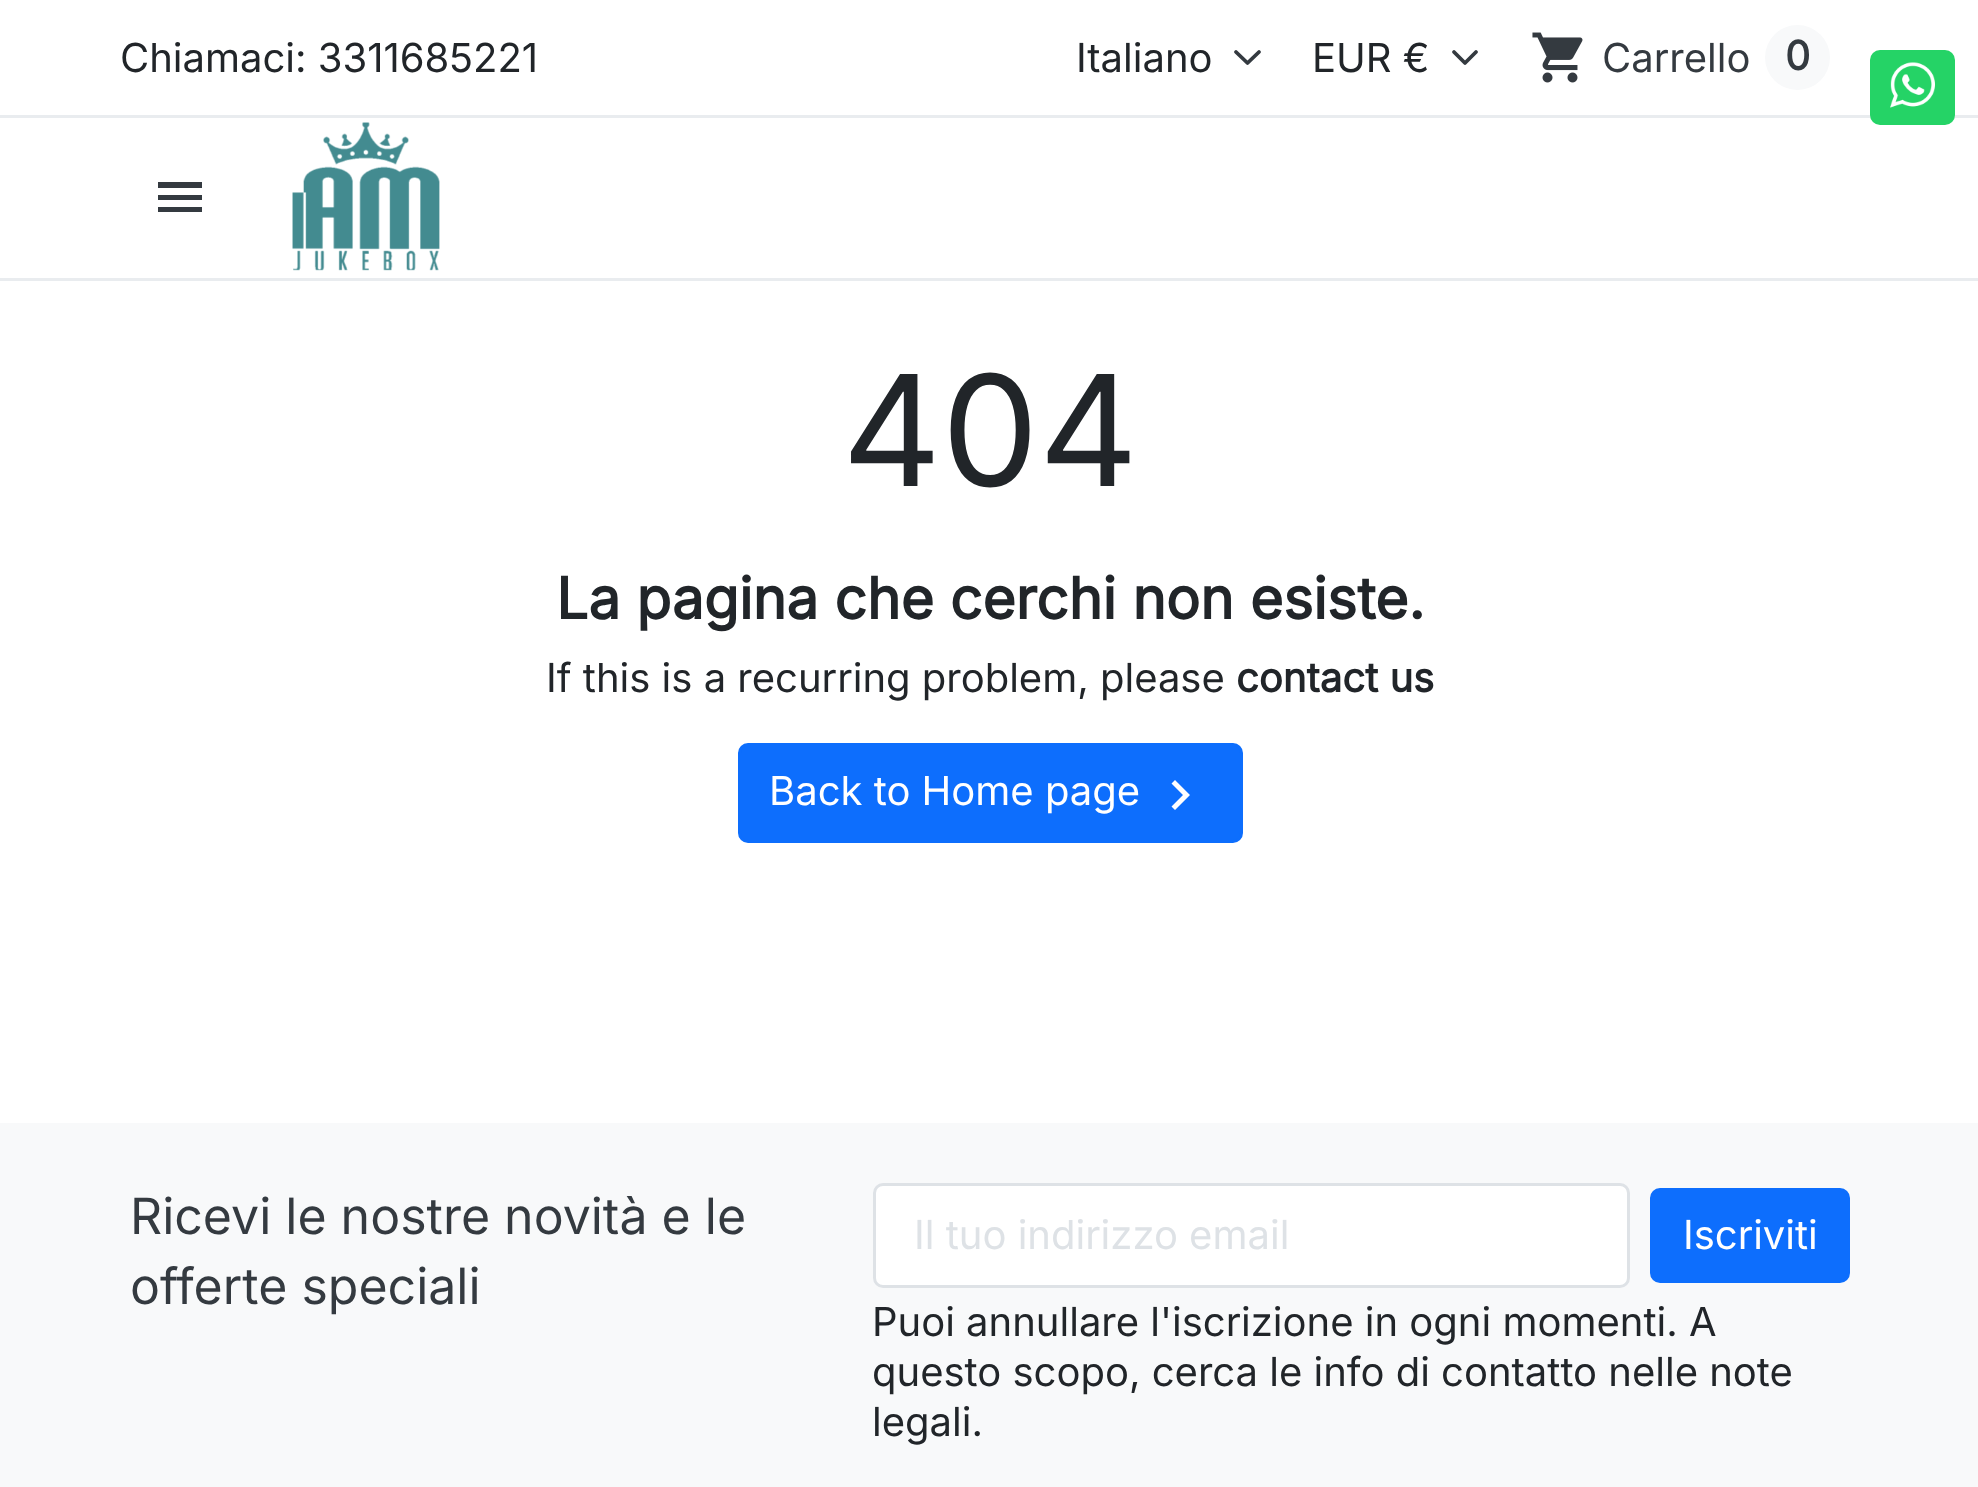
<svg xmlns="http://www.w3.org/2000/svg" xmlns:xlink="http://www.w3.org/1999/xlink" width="1978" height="1487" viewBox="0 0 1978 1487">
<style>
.cls-1{font:40px Inter;fill:#212529}
.cls-2{font:40px Inter;fill:#343a40}
.cls-3{font:bold 40px Inter;fill:#343a40}
.cls-4{font:154px Inter;fill:#212529}
.cls-5{font:bold 57px Inter;fill:#212529}
.cls-6{font:bold 40px Inter;fill:#212529}
.cls-7{font:40px Inter;fill:#ffffff}
.cls-8{font:50px Inter;fill:#343a40}
.cls-9{font:40px Inter;fill:#dee2e6}
</style>
<rect width="100%" height="100%" fill="#ffffff"/>
<rect fill="#e9ecef" x="0" y="115" width="1978" height="3"/>
<path fill="none" stroke="#343a40" stroke-width="3.8" stroke-linecap="round" stroke-linejoin="round" d="M1236 52L1247.5 63L1259 52"/>
<path fill="none" stroke="#343a40" stroke-width="3.8" stroke-linecap="round" stroke-linejoin="round" d="M1454 52L1465 63L1476 52"/>
<image xlink:href="image0.png" x="1532" y="32" width="51" height="51"/>
<circle fill="#f8f9fa" cx="1797.5" cy="57.5" r="32.5"/>
<rect fill="#e9ecef" x="0" y="278" width="1978" height="3"/>
<path fill="#343a40" d="M158 182H202V188H158ZM158 200V195H202V200ZM158 212V207H202V212Z"/>
<image xlink:href="image1.png" x="292" y="122" width="148" height="149"/>
<rect fill="#25d366" x="1870" y="50" width="85" height="75" rx="10"/>
<image xlink:href="image2.png" x="1890" y="62" width="45" height="46"/>
<rect fill="#0d6efd" stroke="#0d6efd" stroke-width="3" x="739.5" y="744.5" width="502" height="97" rx="8.5"/>
<path fill="#ffffff" d="M1171.5 806.5L1183 795L1171.5 783.5L1175 780L1190 795L1175 810Z"/>
<rect fill="#f8f9fa" x="0" y="1123" width="1978" height="364"/>
<rect fill="#ffffff" stroke="#dee2e6" stroke-width="3" x="874.5" y="1184.5" width="754" height="102" rx="8.5"/>
<rect fill="#0d6efd" stroke="#0d6efd" stroke-width="3" x="1651.5" y="1189.5" width="197" height="92" rx="8.5"/>
<text class="cls-1" x="120" y="72">Chiamaci: 3311685221</text>
<text class="cls-1" x="1076" y="72">Italiano</text>
<text class="cls-1" x="1312" y="72">EUR €</text>
<text class="cls-2" x="1602" y="72">Carrello</text>
<text class="cls-3" x="1785" y="70">0</text>
<text class="cls-4" x="842" y="486">404</text>
<text class="cls-5" x="556" y="619">La pagina che cerchi non esiste.</text>
<text class="cls-1" x="546" y="692">If this is a recurring problem, please</text>
<text class="cls-6" x="1236" y="692">contact us</text>
<text class="cls-7" x="769" y="805">Back to Home page</text>
<text class="cls-8"><tspan x="130" y="1234">Ricevi le nostre novità e le</tspan><tspan x="130" y="1304">offerte speciali</tspan></text>
<text class="cls-9" x="914" y="1249">Il tuo indirizzo email</text>
<text class="cls-7" x="1683" y="1249">Iscriviti</text>
<text class="cls-1"><tspan x="872" y="1336">Puoi annullare l'iscrizione in ogni momenti. A</tspan><tspan x="872" y="1386">questo scopo, cerca le info di contatto nelle note</tspan><tspan x="872" y="1436">legali.</tspan></text>
</svg>
